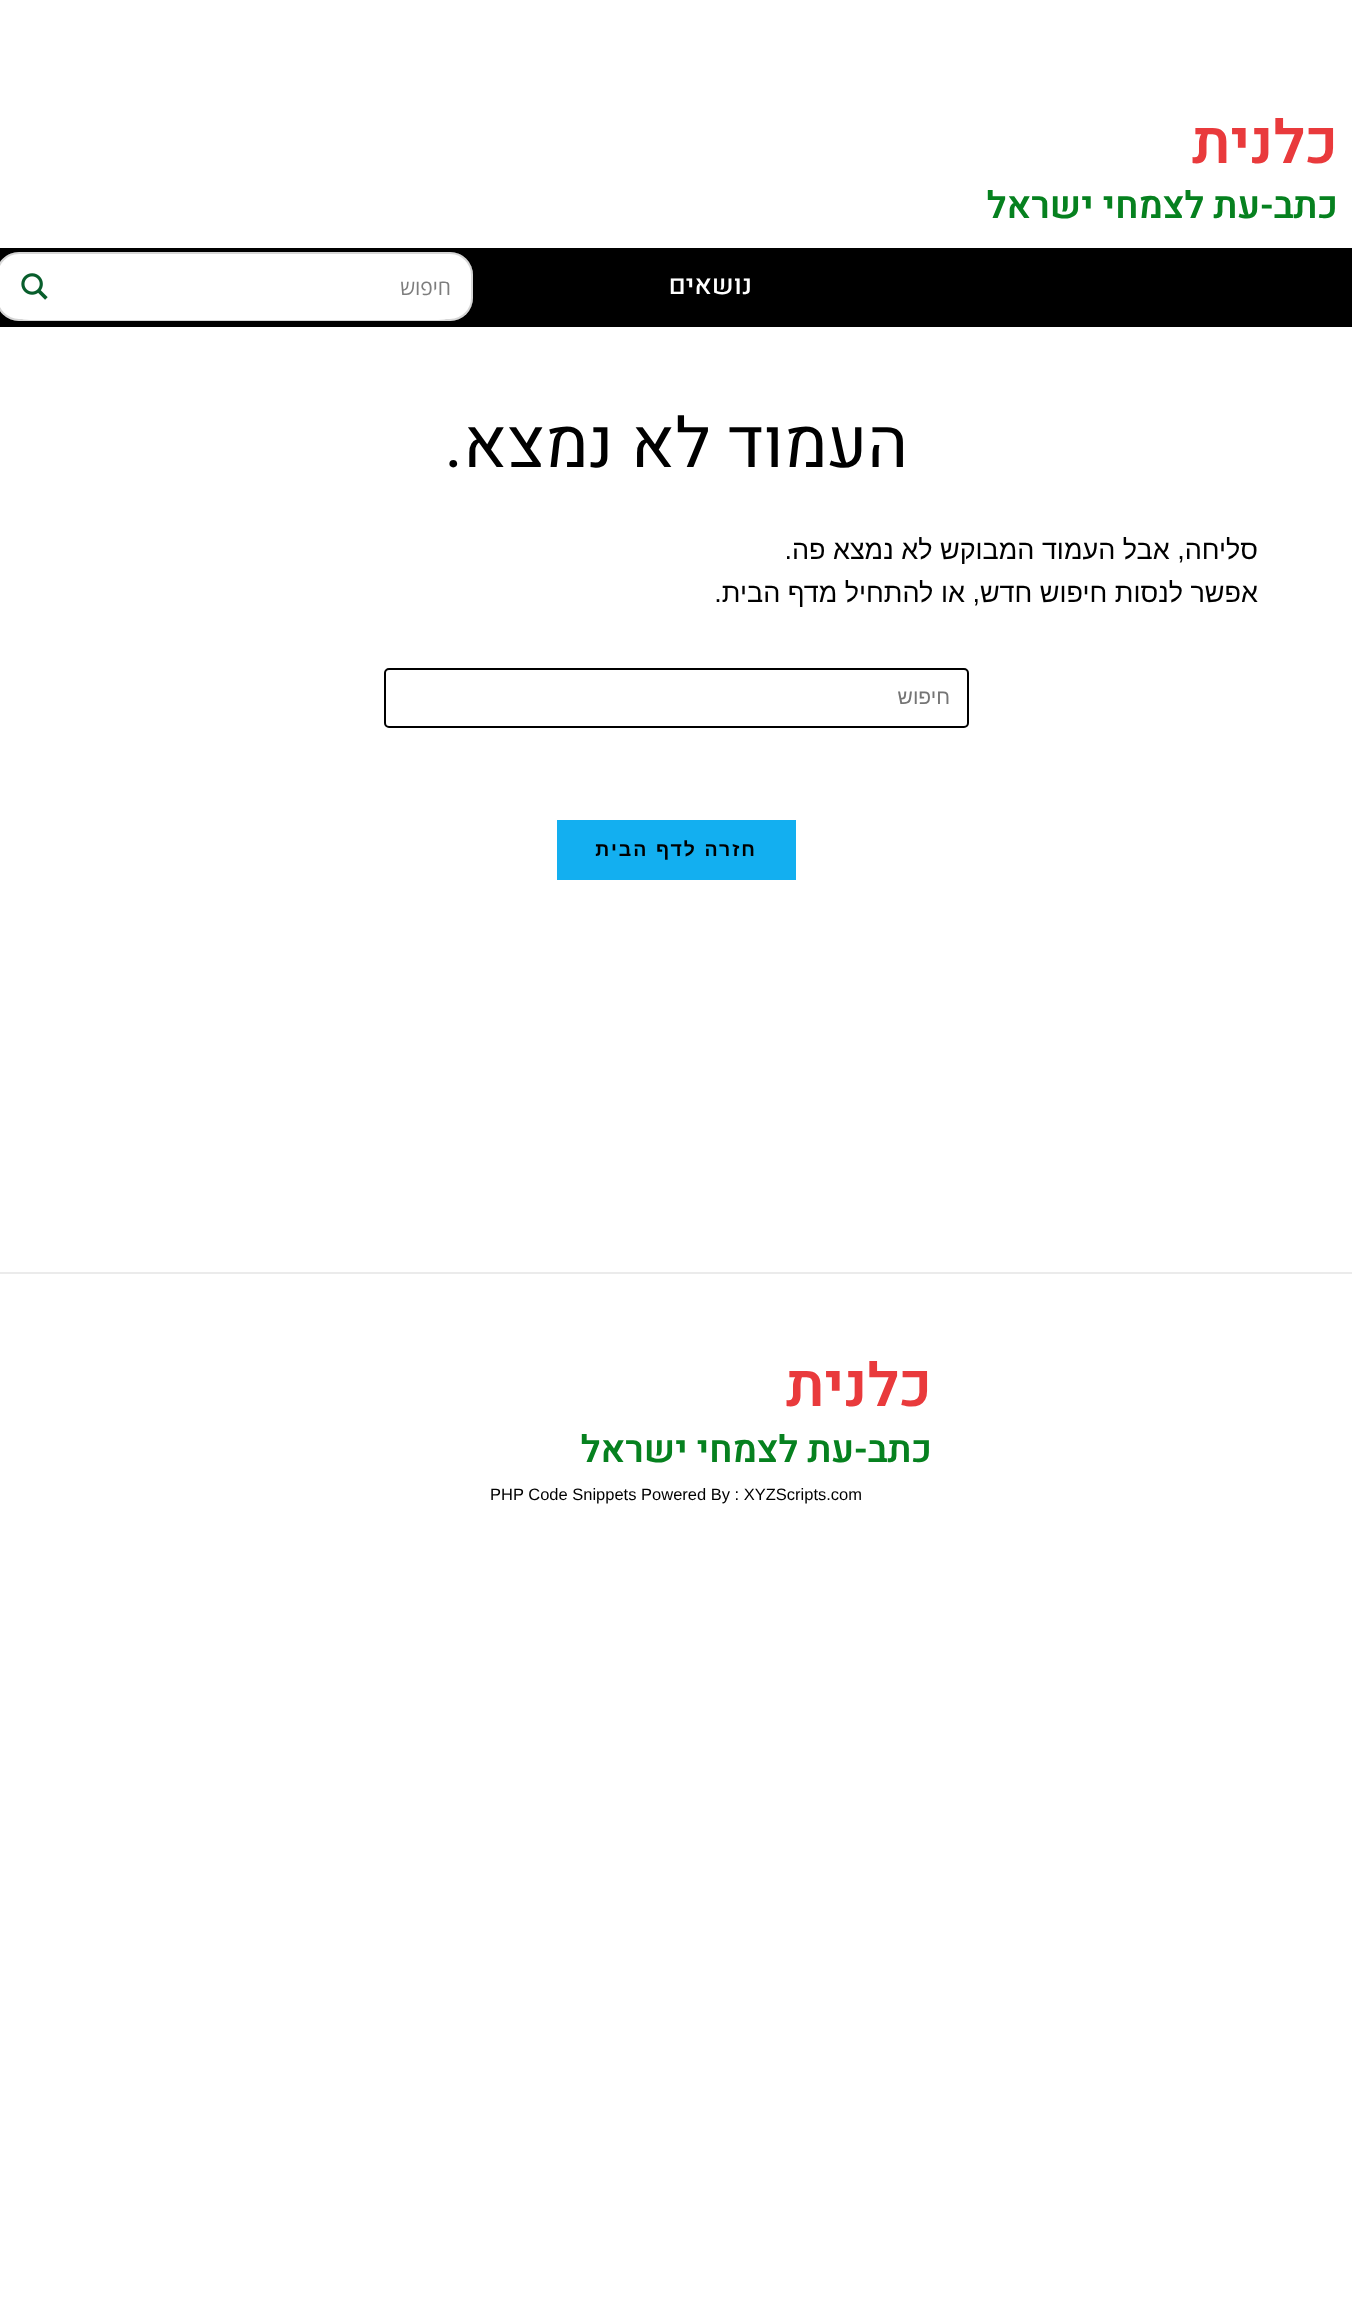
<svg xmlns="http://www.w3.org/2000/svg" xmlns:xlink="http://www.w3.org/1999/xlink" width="1352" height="2312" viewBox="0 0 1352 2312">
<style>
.cls-1{font:600 60px Heebo;direction:rtl;fill:#e93a3c}
.cls-2{font:600 37.5px Heebo;direction:rtl;fill:#06811f}
.cls-3{font:500 27px Heebo;direction:rtl;fill:#ffffff}
.cls-4{font:21px Open Sans;direction:rtl;fill:#7d7d7d}
.cls-5{font:69px Heebo;direction:rtl;fill:#000000}
.cls-6{font:27px Liberation Sans;direction:rtl;fill:#000000}
.cls-7{font:21px Liberation Sans;direction:rtl;fill:#757575}
.cls-8{font:bold 19.5px Liberation Sans;letter-spacing:2px;direction:rtl;fill:#000000}
.cls-9{font:16.5px Liberation Sans;fill:#000000}
</style>
<rect width="100%" height="100%" fill="#ffffff"/>
<rect fill="#000000" x="0" y="248" width="1352" height="79"/>
<rect fill="#ffffff" x="-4" y="252" width="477" height="69" rx="23"/>
<rect fill="none" stroke="#7a7a7a" stroke-opacity="0.31" stroke-width="2" x="-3" y="253" width="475" height="67" rx="22"/>
<rect fill="#ffffff" x="-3" y="254" width="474" height="66" rx="33"/>
<image xlink:href="image0.png" x="21" y="273" width="27" height="27"/>
<rect fill="none" stroke="#000000" stroke-width="2" x="385" y="669" width="583" height="58" rx="4"/>
<rect fill="#13aff0" x="557" y="820" width="239" height="60"/>
<rect fill="#ebebeb" x="0" y="1272" width="1352" height="2"/>
<text class="cls-1" x="1338" y="163">כלנית</text>
<text class="cls-2" x="1338" y="218">כתב-עת לצמחי ישראל</text>
<text class="cls-3" x="752" y="294">נושאים</text>
<text class="cls-4" x="451" y="295">חיפוש</text>
<text class="cls-5" x="908" y="467">העמוד לא נמצא.</text>
<text class="cls-6"><tspan x="1258" y="559">סליחה, אבל העמוד המבוקש לא נמצא פה.</tspan><tspan x="1258" y="602">אפשר לנסות חיפוש חדש, או להתחיל מדף הבית.</tspan></text>
<text class="cls-7" x="950" y="704">חיפוש</text>
<text class="cls-8" x="757" y="856">חזרה לדף הבית</text>
<text class="cls-1" x="932" y="1406">כלנית</text>
<text class="cls-2" x="932" y="1462">כתב-עת לצמחי ישראל</text>
<text class="cls-9" x="490" y="1500">PHP Code Snippets Powered By : XYZScripts.com</text>
</svg>
